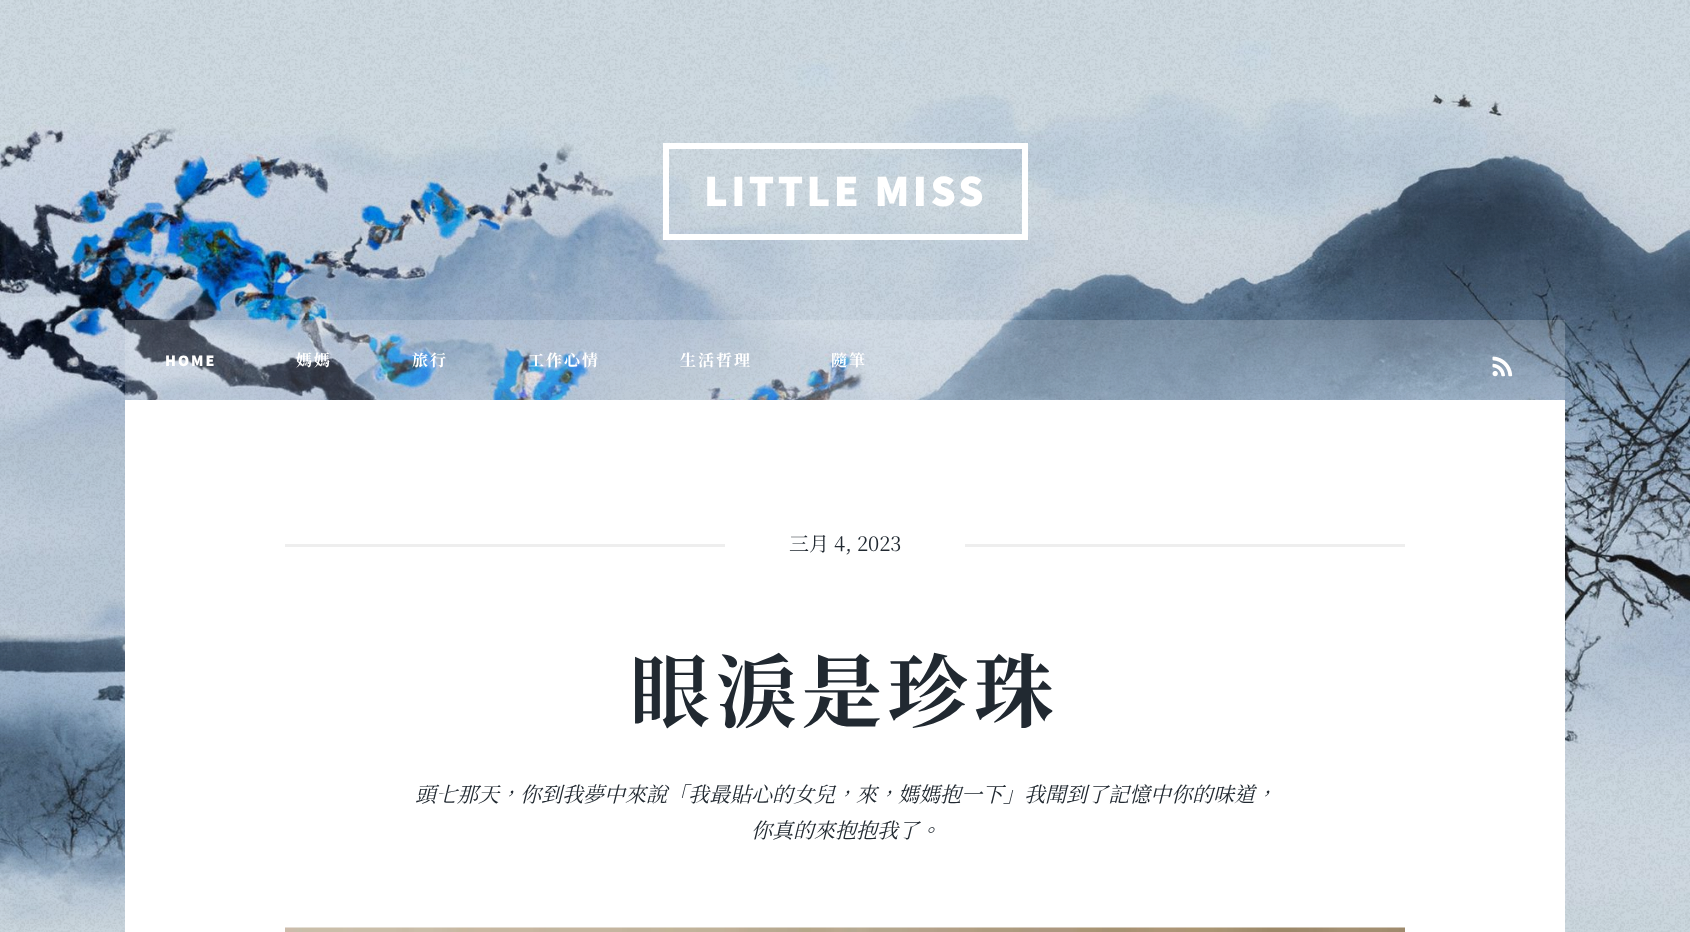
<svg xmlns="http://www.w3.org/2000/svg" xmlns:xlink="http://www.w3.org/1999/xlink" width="1690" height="932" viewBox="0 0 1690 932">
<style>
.cls-1{font:900 45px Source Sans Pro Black;letter-spacing:3.4px;fill:#ffffff}
.cls-2{font:900 16px Source Sans Pro Black;letter-spacing:2px;fill:#ffffff}
.cls-3{font:bold 16px Noto Serif TC;letter-spacing:2px;fill:#ffffff}
.cls-4{font:20px Noto Serif TC;fill:#212931}
.cls-5{font:bold 80px Noto Serif TC;letter-spacing:6px;fill:#212931}
.cls-6{font:italic 21px Noto Serif TC;fill:#212931}
</style>
<rect width="100%" height="100%" fill="#ffffff"/>
<image xlink:href="image0.png" x="0" y="0" width="1690" height="932"/>
<rect fill="none" stroke="#ffffff" stroke-width="6" x="666" y="146" width="359" height="91"/>
<rect fill="#ffffff" fill-opacity="0.18" x="125" y="320" width="1440" height="80"/>
<path fill="none" stroke="#ffffff" stroke-opacity="0.5" stroke-width="1.2" stroke-dasharray="1.25 1.25" d="M125 400.5H256"/>
<path fill="none" stroke="#ffffff" stroke-opacity="0.5" stroke-width="1.2" stroke-dasharray="1.25 1.25" d="M256 400.5H372.5"/>
<path fill="none" stroke="#ffffff" stroke-opacity="0.5" stroke-width="1.2" stroke-dasharray="1.25 1.25" d="M372.5 400.5H487.5"/>
<path fill="none" stroke="#ffffff" stroke-opacity="0.5" stroke-width="1.2" stroke-dasharray="1.25 1.25" d="M487.5 400.5H640"/>
<path fill="none" stroke="#ffffff" stroke-opacity="0.5" stroke-width="1.2" stroke-dasharray="1.25 1.25" d="M640 400.5H791"/>
<path fill="none" stroke="#ffffff" stroke-opacity="0.5" stroke-width="1.2" stroke-dasharray="1.25 1.25" d="M791 400.5H907.5"/>
<image xlink:href="image1.png" x="1492" y="356" width="21" height="21"/>
<rect fill="#ffffff" x="125" y="400" width="1440" height="532"/>
<rect fill="#eeeeee" x="285" y="544" width="440" height="3"/>
<rect fill="#eeeeee" x="965" y="544" width="440" height="3"/>
<image xlink:href="image2.png" x="285" y="927" width="1120" height="5"/>
<text class="cls-1" x="704" y="206">LITTLE MISS</text>
<text class="cls-2" x="165" y="366">HOME</text>
<text class="cls-3" x="296" y="366">媽媽</text>
<text class="cls-3" x="412" y="366">旅行</text>
<text class="cls-3" x="528" y="366">工作心情</text>
<text class="cls-3" x="680" y="366">生活哲理</text>
<text class="cls-3" x="831" y="366">隨筆</text>
<text class="cls-4" x="789" y="551">三月 4, 2023</text>
<text class="cls-5" x="630" y="721">眼淚是珍珠</text>
<text class="cls-6" x="415" y="802">頭七那天，你到我夢中來說「我最貼心的女兒，來，媽媽抱一下」我聞到了記憶中你的味道，</text>
<text class="cls-6" x="751" y="838">你真的來抱抱我了。</text>
</svg>
